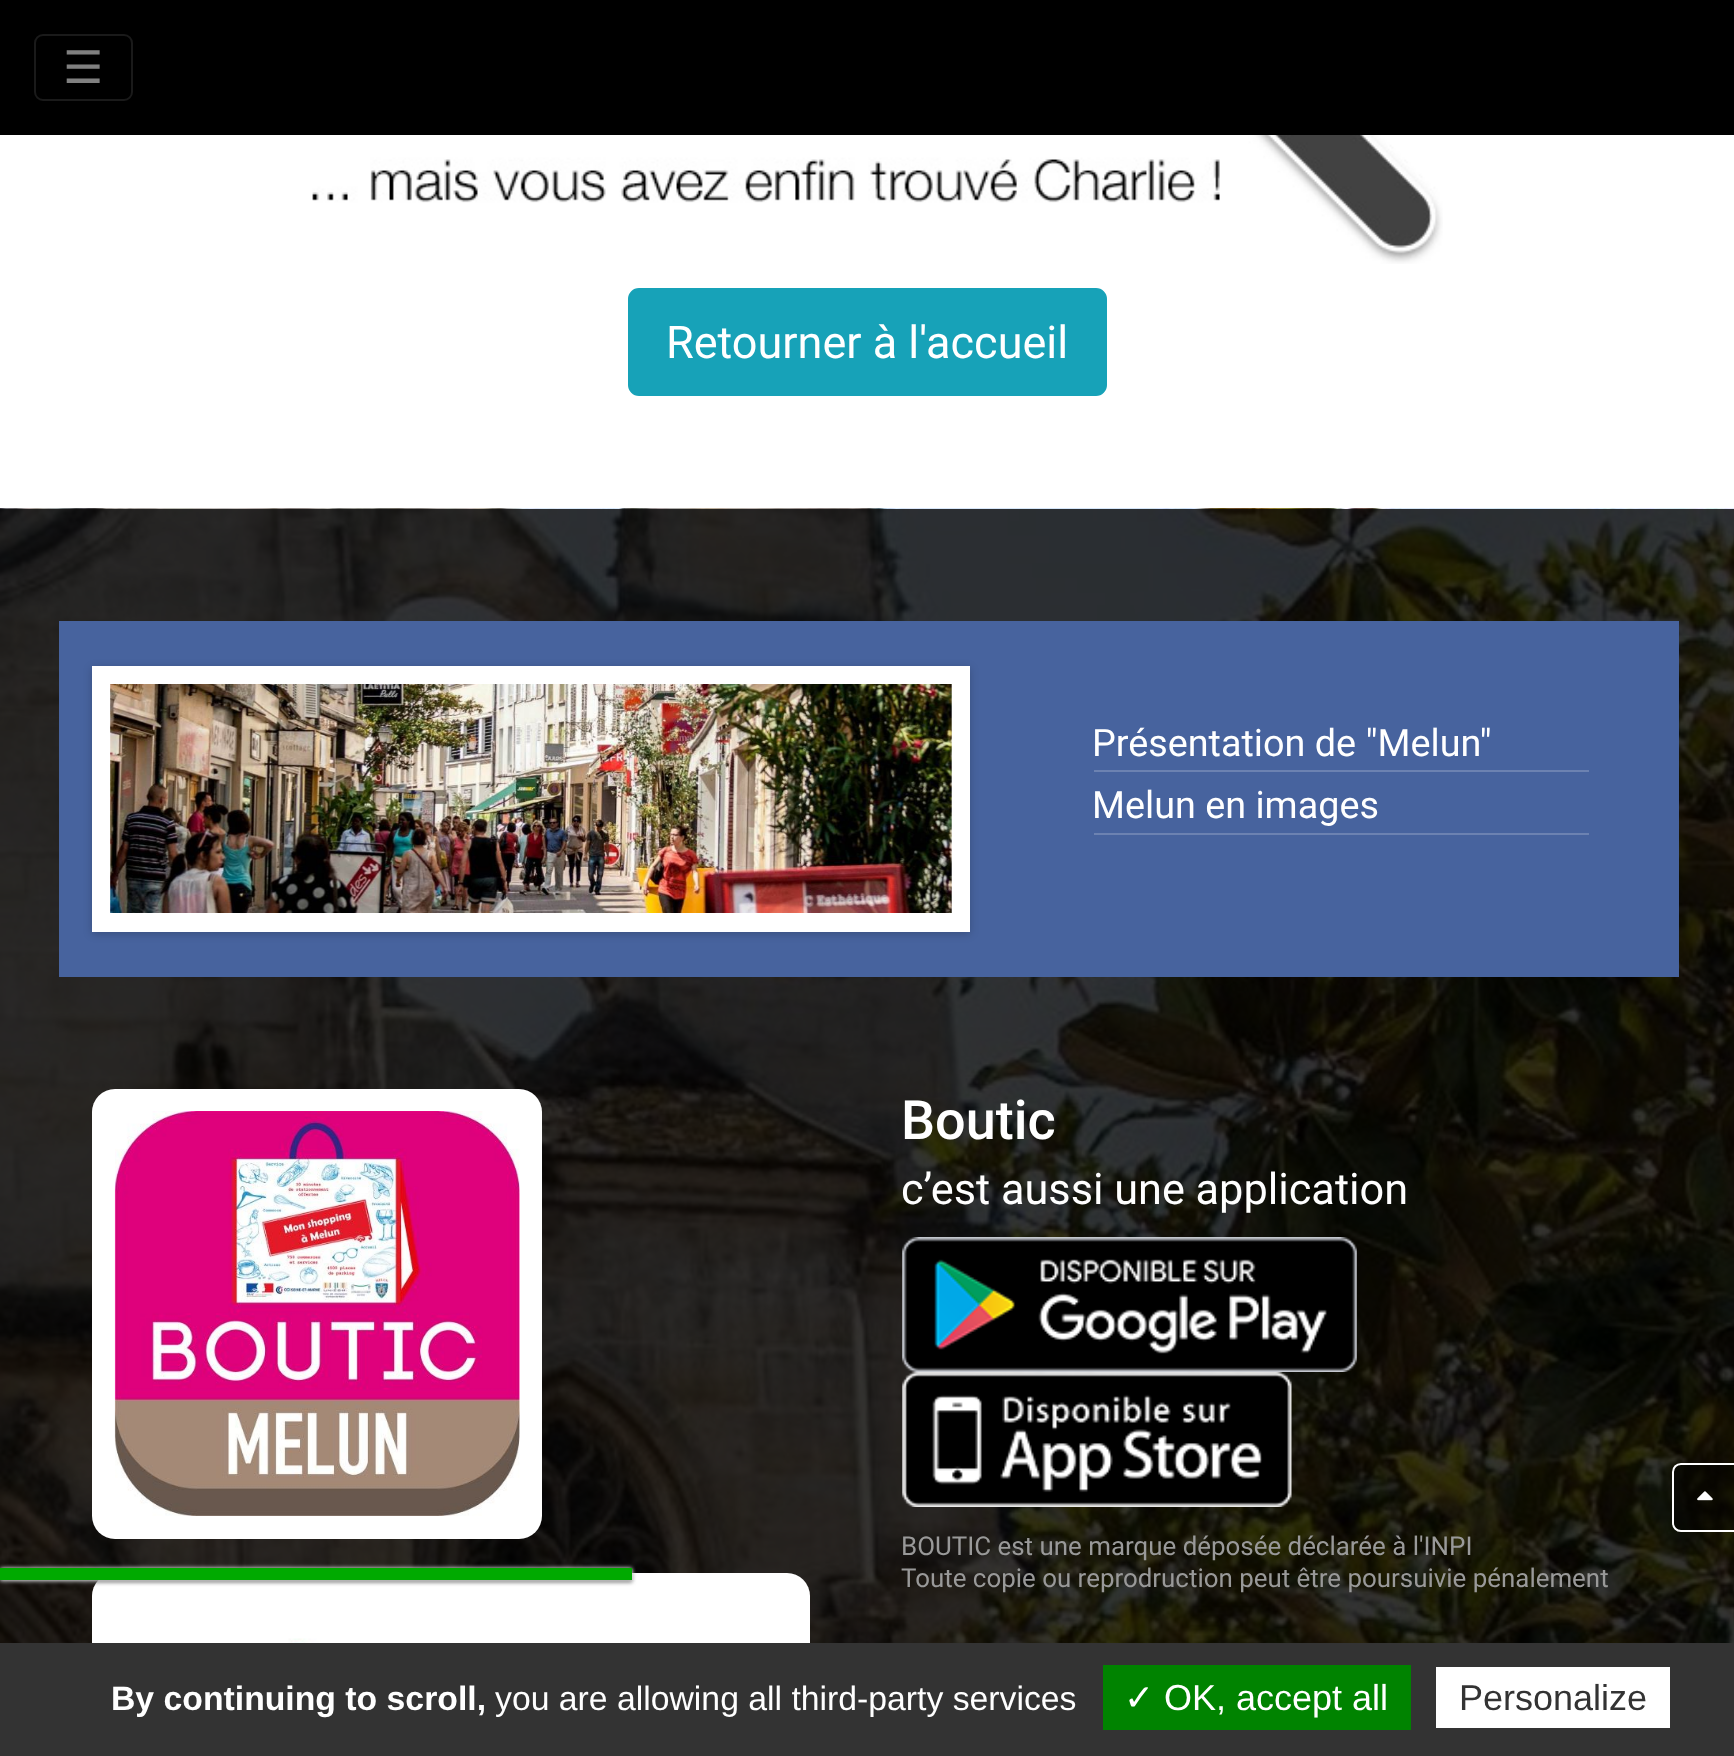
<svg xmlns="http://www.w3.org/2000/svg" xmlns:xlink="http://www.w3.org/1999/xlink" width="1734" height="1756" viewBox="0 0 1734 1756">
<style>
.cls-1{font:45px DejaVu Sans;fill:#808080}
.cls-2{font:45px Roboto;fill:#ffffff}
.cls-3{font:37.75px Roboto;fill:#ffffff}
.cls-4{font:500 54px Roboto;fill:#ffffff}
.cls-5{font:43.25px Roboto;fill:#ffffff}
.cls-6{font:25.9px Roboto;fill:#999999}
.cls-7{font:bold 33.75px Liberation Sans;fill:#ffffff}
.cls-8{font:33.75px Liberation Sans;fill:#ffffff}
.cls-9{font:36px DejaVu Sans;fill:#ffffff}
.cls-10{font:36px Liberation Sans;fill:#ffffff}
.cls-11{font:36px Liberation Sans;fill:#333333}
</style>
<rect width="100%" height="100%" fill="#ffffff"/>
<rect fill="#000000" x="0" y="0" width="1734" height="135"/>
<rect fill="none" stroke="#1a1a1a" stroke-width="2" x="35" y="35" width="97" height="65" rx="8"/>
<image xlink:href="image0.png" x="312" y="135" width="1131" height="129"/>
<rect fill="#17a2b8" stroke="#17a2b8" stroke-width="2" x="629" y="289" width="477" height="106" rx="10"/>
<image xlink:href="image1.png" x="0" y="508" width="1734" height="1135"/>
<rect fill="#47639e" x="59" y="621" width="1620" height="356"/>
<rect fill="#000000" fill-opacity="0.2" filter="blur(4.5px)" x="92" y="668" width="878" height="266"/>
<rect fill="#ffffff" x="92" y="666" width="878" height="266"/>
<image xlink:href="image2.png" x="110" y="684" width="842" height="229"/>
<rect fill="#6c82b1" x="1094" y="770" width="495" height="2"/>
<rect fill="#6c82b1" x="1094" y="833" width="495" height="2"/>
<rect fill="#ffffff" x="92" y="1089" width="450" height="450" rx="23"/>
<image xlink:href="image3.png" x="114" y="1111" width="406" height="405"/>
<rect fill="#ffffff" x="92" y="1573" width="718" height="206" rx="23"/>
<image xlink:href="image4.png" x="187" y="1638" width="508" height="5"/>
<image xlink:href="image5.png" x="902" y="1237" width="455" height="135"/>
<image xlink:href="image6.png" x="902" y="1372" width="390" height="135"/>
<path fill="#000000" fill-opacity="0.5" stroke="#ffffff" stroke-width="2" d="M1681 1464H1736V1531H1681C1676.5 1531 1673 1527.5 1673 1523V1472C1673 1467.5 1676.5 1464 1681 1464Z"/>
<image xlink:href="image7.png" x="1697" y="1491" width="16" height="10"/>
<rect fill="#555555" filter="blur(2px)" x="0" y="1571" width="632" height="11"/>
<rect fill="#ffffff" filter="blur(2px)" x="0" y="1568" width="632" height="12"/>
<rect fill="#00aa00" x="0" y="1568" width="632" height="12"/>
<rect fill="#333333" x="0" y="1643" width="1734" height="113"/>
<rect fill="#008300" x="1103" y="1665" width="308" height="65"/>
<rect fill="#ffffff" x="1436" y="1667" width="234" height="61"/>
<text class="cls-1" x="63" y="83">☰</text>
<text class="cls-2" x="666" y="358">Retourner à l'accueil</text>
<text class="cls-3"><tspan x="1092" y="756">Présentation de "Melun"</tspan><tspan x="1092" y="818">Melun en images</tspan></text>
<text class="cls-4" x="901" y="1139">Boutic</text>
<text class="cls-5" x="901" y="1204">c’est aussi une application</text>
<text class="cls-6"><tspan x="901" y="1555">BOUTIC est une marque déposée déclarée à l'INPI</tspan><tspan x="901" y="1587">Toute copie ou reprodruction peut être poursuivie pénalement</tspan></text>
<text class="cls-7" x="111" y="1710">By continuing to scroll,</text>
<text class="cls-8" x="495" y="1710">you are allowing all third-party services</text>
<text class="cls-9" x="1124" y="1710">✓</text>
<text class="cls-10" x="1164" y="1710">OK, accept all</text>
<text class="cls-11" x="1459" y="1710">Personalize</text>
</svg>
